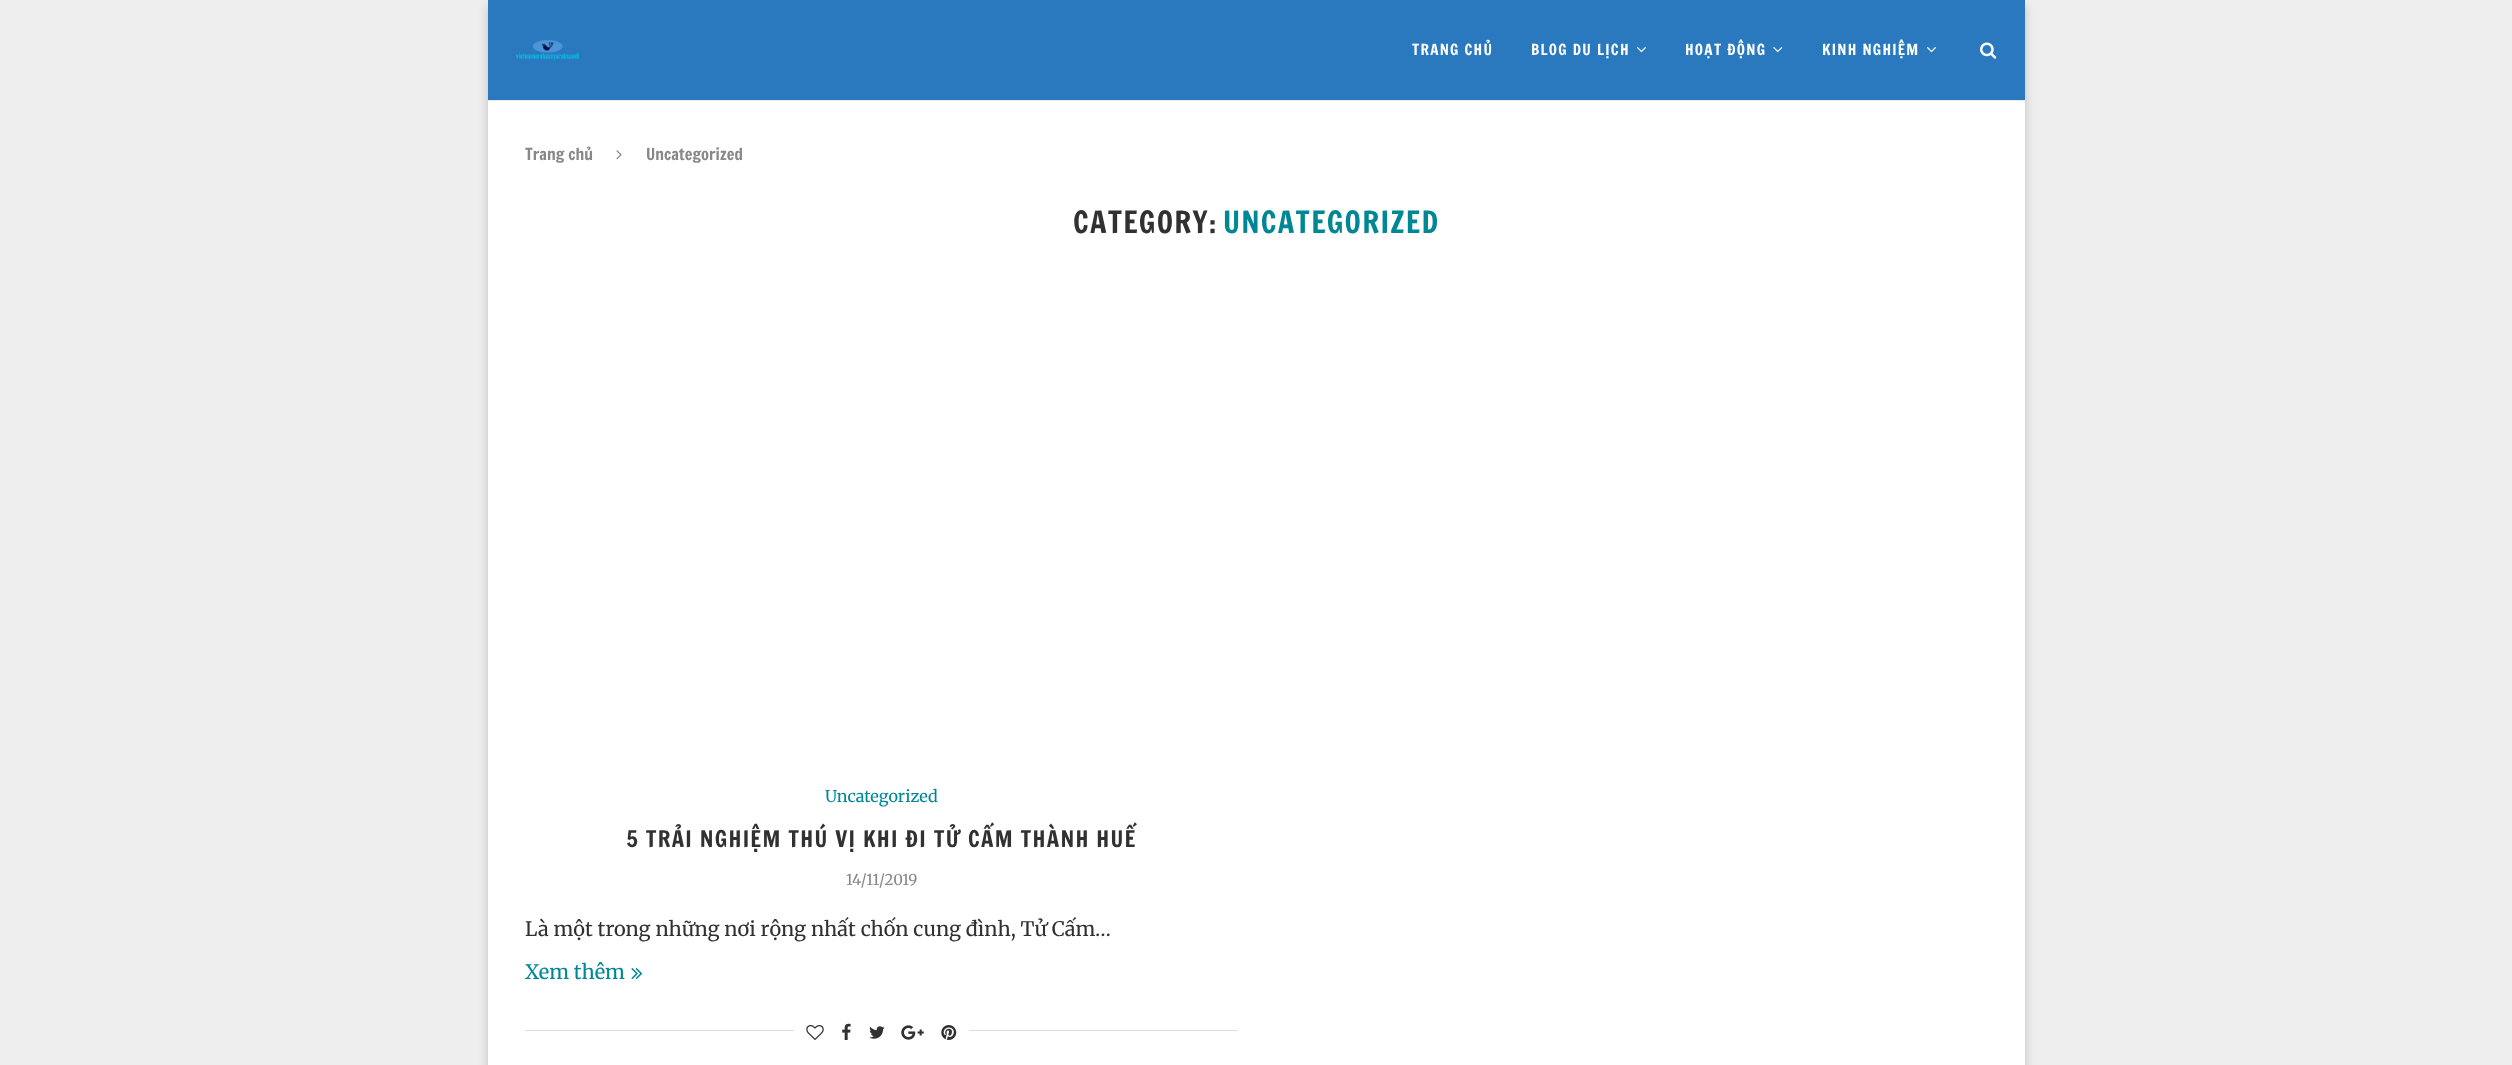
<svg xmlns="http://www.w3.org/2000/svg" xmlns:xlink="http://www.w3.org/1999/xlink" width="2512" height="1065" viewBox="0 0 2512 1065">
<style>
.cls-1{font:15px Francois One;letter-spacing:1.25px;fill:#ffffff}
.cls-2{font:16.25px Francois One;fill:#888888}
.cls-3{font:30px Francois One;letter-spacing:1.25px;fill:#313131}
.cls-4{font:30px Francois One;letter-spacing:1.25px;fill:#008796}
.cls-5{font:16.25px Merriweather;fill:#008796}
.cls-6{font:22.5px Francois One;letter-spacing:1.25px;fill:#313131}
.cls-7{font:15px Merriweather;fill:#888888}
.cls-8{font:20px Merriweather;fill:#313131}
.cls-9{font:20px Merriweather;fill:#008796}
</style>
<rect width="100%" height="100%" fill="#eeeeee"/>
<rect fill="#000000" fill-opacity="0.2" filter="blur(5px)" x="488" y="6" width="1537" height="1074"/>
<rect fill="#ffffff" x="488" y="101" width="1537" height="964"/>
<rect fill="#2a79bf" x="488" y="0" width="1537" height="100"/>
<rect fill="#ececec" x="488" y="100" width="1537" height="1"/>
<image xlink:href="image0.png" x="516" y="40" width="63" height="21"/>
<image xlink:href="image1.png" x="1637" y="47" width="9" height="6"/>
<image xlink:href="image2.png" x="1773" y="47" width="10" height="6"/>
<image xlink:href="image1.png" x="1927" y="47" width="9" height="6"/>
<image xlink:href="image3.png" x="1980" y="42" width="17" height="17"/>
<image xlink:href="image4.png" x="616" y="150" width="6" height="10"/>
<image xlink:href="image5.png" x="631" y="968" width="12" height="12"/>
<rect fill="#dedede" x="525" y="1030" width="713" height="1"/>
<rect fill="#ffffff" x="794" y="1030" width="175" height="1"/>
<image xlink:href="image6.png" x="806" y="1025" width="18" height="15"/>
<image xlink:href="image7.png" x="842" y="1023" width="9" height="17"/>
<image xlink:href="image8.png" x="869" y="1026" width="16" height="13"/>
<image xlink:href="image9.png" x="901" y="1025" width="23" height="15"/>
<image xlink:href="image10.png" x="941" y="1025" width="16" height="15"/>
<text class="cls-1" x="1412" y="55">TRANG CHỦ</text>
<text class="cls-1" x="1531" y="55">BLOG DU LỊCH</text>
<text class="cls-1" x="1685" y="55">HOẠT ĐỘNG</text>
<text class="cls-1" x="1822" y="55">KINH NGHIỆM</text>
<text class="cls-2" x="525" y="160">Trang chủ</text>
<text class="cls-2" x="646" y="160">Uncategorized</text>
<text class="cls-3" x="1073" y="233">CATEGORY:</text>
<text class="cls-4" x="1223" y="233">UNCATEGORIZED</text>
<text class="cls-5" x="825" y="802">Uncategorized</text>
<text class="cls-6" x="626" y="847">5 TRẢI NGHIỆM THÚ VỊ KHI ĐI TỬ CẤM THÀNH HUẾ</text>
<text class="cls-7" x="846" y="885">14/11/2019</text>
<text class="cls-8" x="525" y="936">Là một trong những nơi rộng nhất chốn cung đình, Tử Cấm…</text>
<text class="cls-9" x="525" y="979">Xem thêm</text>
</svg>
